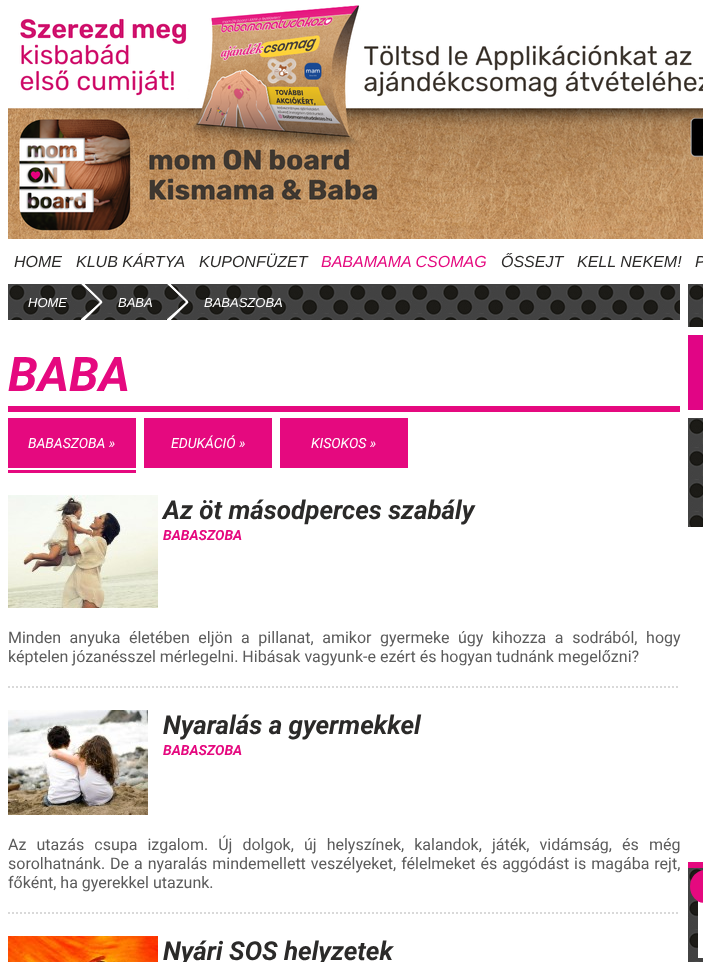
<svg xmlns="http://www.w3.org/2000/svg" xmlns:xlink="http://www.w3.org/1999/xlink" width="703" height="962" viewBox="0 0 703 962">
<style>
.cls-1{font:italic 16px Liberation Sans;fill:#2b2a29}
.cls-2{font:italic 16px Liberation Sans;fill:#e5097f}
.cls-3{font:italic 13px Liberation Sans;fill:#ffffff}
.cls-4{font:italic bold 48px Roboto;fill:#e5097f}
.cls-5{font:italic 14px Roboto;fill:#ffffff}
.cls-6{font:italic bold 26px Roboto;fill:#2b2a29}
.cls-7{font:italic bold 14px Roboto;fill:#e5097f}
.cls-8{font:16px Roboto;fill:#5b5b5b}
</style>
<rect width="100%" height="100%" fill="#ffffff"/>
<image xlink:href="image0.png" x="8" y="5" width="695" height="234"/>
<image xlink:href="image1.png" x="8" y="284" width="672" height="36"/>
<image xlink:href="image2.png" x="81" y="284" width="22" height="36"/>
<image xlink:href="image3.png" x="167" y="284" width="22" height="36"/>
<rect fill="#e5097f" x="8" y="406" width="672" height="6"/>
<image xlink:href="image4.png" x="688" y="284" width="15" height="43"/>
<image xlink:href="image5.png" x="688" y="327" width="15" height="83"/>
<rect fill="#e5097f" x="8" y="418" width="128" height="50"/>
<rect fill="#e5097f" x="8" y="470" width="128" height="3"/>
<rect fill="#e5097f" x="144" y="418" width="128" height="50"/>
<rect fill="#e5097f" x="280" y="418" width="128" height="50"/>
<image xlink:href="image6.png" x="8" y="495" width="150" height="113"/>
<path fill="none" stroke="#d9d9d9" stroke-width="2" stroke-dasharray="2 2" d="M8 687H680"/>
<image xlink:href="image7.png" x="8" y="710" width="140" height="105"/>
<path fill="none" stroke="#d9d9d9" stroke-width="2" stroke-dasharray="2 2" d="M8 913H680"/>
<image xlink:href="image8.png" x="8" y="936" width="150" height="26"/>
<image xlink:href="image9.png" x="688" y="418" width="15" height="109"/>
<rect fill="#e5097f" x="688" y="862" width="15" height="6"/>
<image xlink:href="image10.png" x="688" y="868" width="15" height="94"/>
<rect fill="none" stroke="#ffffff" stroke-width="5" x="700.5" y="880.5" width="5" height="75"/>
<rect fill="#e5097f" x="690" y="870" width="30" height="33" rx="16.5"/>
<text class="cls-1" x="14" y="267">HOME</text>
<text class="cls-1" x="76" y="267">KLUB KÁRTYA</text>
<text class="cls-1" x="199" y="267">KUPONFÜZET</text>
<text class="cls-2" x="321" y="267">BABAMAMA CSOMAG</text>
<text class="cls-1" x="501" y="267">ŐSSEJT</text>
<text class="cls-1" x="577" y="267">KELL NEKEM!</text>
<text class="cls-1" x="695" y="267">P</text>
<text class="cls-3" x="28" y="307">HOME</text>
<text class="cls-3" x="118" y="307">BABA</text>
<text class="cls-3" x="204" y="307">BABASZOBA</text>
<text class="cls-4" x="8" y="391">BABA</text>
<text class="cls-5" x="28" y="448">BABASZOBA »</text>
<text class="cls-5" x="171" y="448">EDUKÁCIÓ »</text>
<text class="cls-5" x="311" y="448">KISOKOS »</text>
<text class="cls-6" x="163" y="519">Az öt másodperces szabály</text>
<text class="cls-7" x="163" y="540">BABASZOBA</text>
<text class="cls-8"><tspan x="8" y="643" word-spacing="4.6">Minden anyuka életében eljön a pillanat, amikor gyermeke úgy kihozza a sodrából, hogy</tspan><tspan x="8" y="662">képtelen józanésszel mérlegelni. Hibásak vagyunk-e ezért és hogyan tudnánk megelőzni?</tspan></text>
<text class="cls-6" x="163" y="734">Nyaralás a gyermekkel</text>
<text class="cls-7" x="163" y="755">BABASZOBA</text>
<text class="cls-8"><tspan x="8" y="850" word-spacing="6.1">Az utazás csupa izgalom. Új dolgok, új helyszínek, kalandok, játék, vidámság, és még</tspan><tspan x="8" y="869" word-spacing="1">sorolhatnánk. De a nyaralás mindemellett veszélyeket, félelmeket és aggódást is magába rejt,</tspan><tspan x="8" y="888">főként, ha gyerekkel utazunk.</tspan></text>
<text class="cls-6" x="163" y="960">Nyári SOS helyzetek</text>
</svg>
